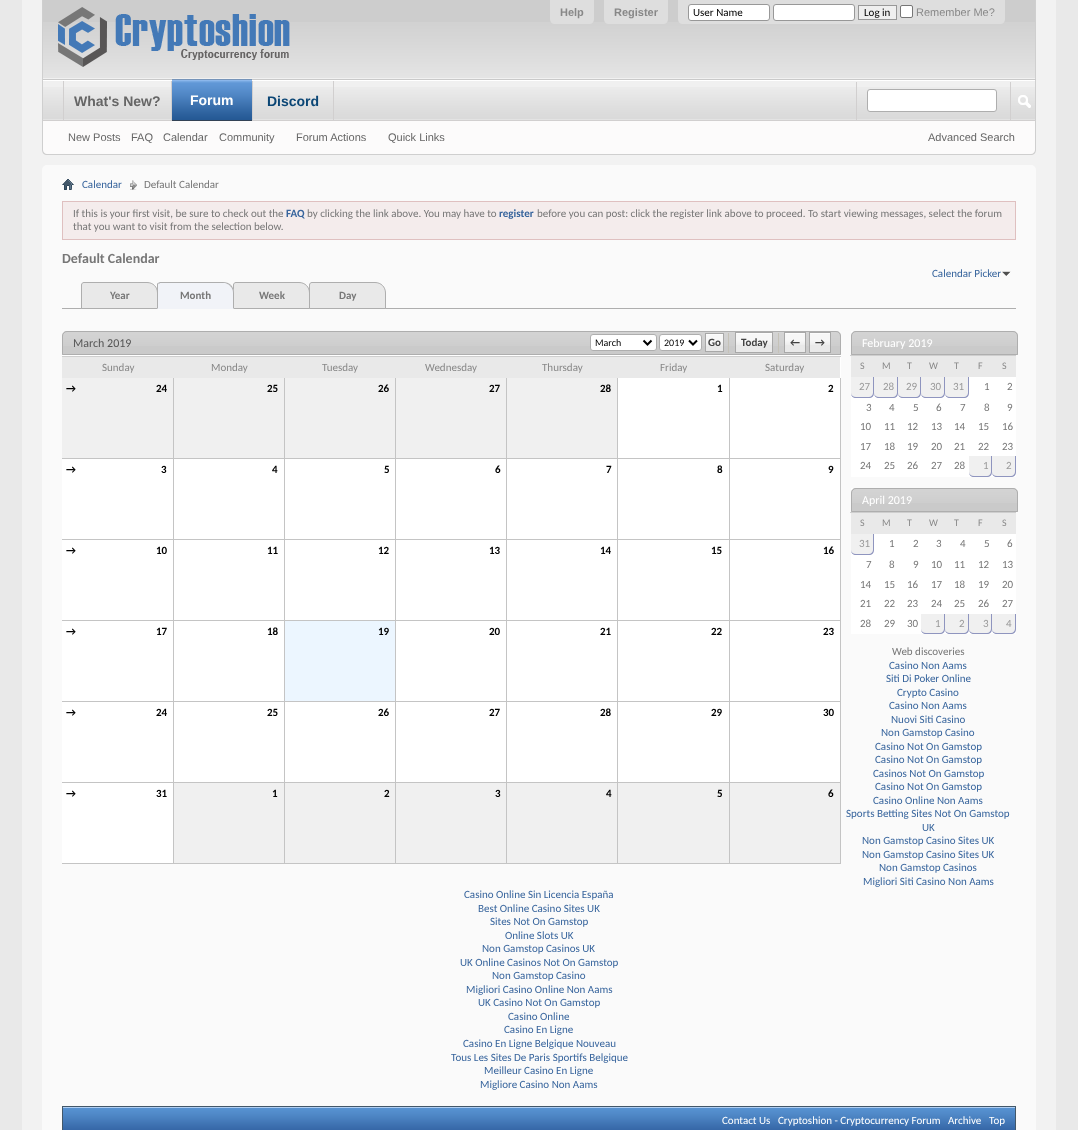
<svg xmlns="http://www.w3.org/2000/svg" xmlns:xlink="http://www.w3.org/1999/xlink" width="1078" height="1130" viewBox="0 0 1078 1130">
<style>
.cls-1{font:bold 11px Liberation Sans;fill:#888888}
.cls-2{font:11px Carlito;fill:#000000}
.cls-3{font:11px Liberation Sans;fill:#888888}
.cls-4{font:bold 14px Liberation Sans;fill:#666666}
.cls-5{font:bold 14px Liberation Sans;fill:#ffffff}
.cls-6{font:bold 14px Liberation Sans;fill:#0b4675}
.cls-7{font:11px Liberation Sans;fill:#666666}
.cls-8{font:11px Carlito;fill:#38659d}
.cls-9{font:11px Carlito;fill:#777777}
.cls-10{font:bold 11px Carlito;fill:#38659d}
.cls-11{font:bold 14px Carlito;fill:#777777}
.cls-12{font:bold 11px Carlito;fill:#777777}
.cls-13{font:12px Carlito;fill:#555555}
.cls-14{font:bold 11px Carlito;fill:#424242}
.cls-15{font:10px Carlito;fill:#000000}
.cls-16{font:11px Carlito;fill:#888888}
.cls-17{font:bold 11px Carlito;fill:#000000}
.cls-18{font:12px Carlito;fill:#ffffff}
.cls-19{font:10px Carlito;fill:#888888}
.cls-20{font:11px Carlito;fill:#999999}
.cls-21{font:11px Carlito;fill:#ffffff}
</style>
<rect width="100%" height="100%" fill="#e9e9e9"/>
<rect fill="#f2f2f2" x="22" y="0" width="1034" height="1130"/>
<rect fill="#cdcdcd" x="43" y="0" width="992" height="22"/>
<image xlink:href="image0.png" x="43" y="22" width="992" height="57"/>
<rect fill="#cfcfcf" x="1035" y="0" width="1" height="80"/>
<rect fill="#c9c9c9" x="42" y="79" width="994" height="1"/>
<rect fill="#cfcfcf" x="42" y="0" width="1" height="80"/>
<image xlink:href="image1.png" x="58" y="7" width="232" height="60"/>
<path fill="#dedede" d="M550 0H594V19C594 22 592 24 589 24H555C552 24 550 22 550 19Z"/>
<path fill="#dedede" d="M604 0H668V19C668 22 666 24 663 24H609C606 24 604 22 604 19Z"/>
<path fill="#dedede" d="M678 0H1005V19C1005 22 1003 24 1000 24H683C680 24 678 22 678 19Z"/>
<rect fill="#ffffff" stroke="#989898" x="688.5" y="4.5" width="81" height="16" rx="2.5"/>
<rect fill="#ffffff" stroke="#989898" x="773.5" y="4.5" width="81" height="16" rx="2.5"/>
<rect fill="#efefef" stroke="#989898" x="858.5" y="5.5" width="38" height="14"/>
<rect fill="#ffffff" stroke="#767676" x="900.5" y="5.5" width="12" height="12" rx="1.5"/>
<path fill="#fcfbfb" d="M42 80H1036V150C1036 153 1034 155 1031 155H47C44 155 42 153 42 150Z"/>
<path fill="#cfcfcf" fill-rule="evenodd" d="M42 80H1036V150C1036 153 1034 155 1031 155H47C44 155 42 153 42 150ZM43 80H1035V150C1035 152 1033 154 1031 154H47C45 154 43 152 43 150Z"/>
<rect fill="#f0f0f0" x="43" y="81" width="992" height="6"/>
<image xlink:href="image2.png" x="43" y="87" width="992" height="33"/>
<rect fill="#ffffff" x="43" y="80" width="992" height="1"/>
<rect fill="#d1cfcf" x="171" y="81" width="1" height="40"/>
<rect fill="#d1cfcf" x="63" y="81" width="1" height="40"/>
<image xlink:href="image3.png" x="64" y="87" width="107" height="33"/>
<rect fill="#d1cfcf" x="252" y="81" width="1" height="40"/>
<image xlink:href="image4.png" x="172" y="80" width="80" height="40"/>
<rect fill="#7694b9" x="172" y="79" width="80" height="1"/>
<rect fill="#d1cfcf" x="333" y="81" width="1" height="40"/>
<rect fill="#d1cfcf" x="43" y="120" width="992" height="1"/>
<rect fill="#324255" x="172" y="120" width="80" height="1"/>
<image xlink:href="image5.png" x="253" y="87" width="80" height="33"/>
<rect fill="#d1cfcf" x="856" y="82" width="1" height="39"/>
<rect fill="#ffffff" stroke="#aeaeae" x="867.5" y="89.5" width="129" height="22" rx="2.5"/>
<rect fill="#d1cfcf" x="1010" y="82" width="1" height="39"/>
<image xlink:href="image6.png" x="1018" y="95" width="13" height="13"/>
<rect fill="#fafafa" x="42" y="165" width="994" height="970" rx="5"/>
<image xlink:href="image7.png" x="62" y="179" width="12" height="11"/>
<image xlink:href="image8.png" x="130" y="180" width="7" height="10"/>
<rect fill="#f4ecec" stroke="#dfc0c0" x="62.5" y="201.5" width="953" height="38"/>
<image xlink:href="image9.png" x="1002" y="271" width="9" height="5"/>
<rect fill="#aeaeae" x="62" y="308" width="954" height="1"/>
<path fill="#e9e9e9" stroke="#aeaeae" d="M84 282.5H147C153 282.5 157.5 287 157.5 293V308.5H81.5V285C81.5 283.5 82.5 282.5 84 282.5Z"/>
<path fill="#e9e9e9" stroke="#aeaeae" d="M236 282.5H299C305 282.5 309.5 287 309.5 293V308.5H233.5V285C233.5 283.5 234.5 282.5 236 282.5Z"/>
<path fill="#f1f3f8" d="M160 282H223C229 282 234 287 234 293V309H157V285C157 283.5 158.5 282 160 282Z"/>
<path fill="#aeaeae" d="M160 282L158 283L159 284L160 283H225C227 284 229 284 230 286L231 285C229 283 226 282 223 282Z"/>
<path fill="#aeaeae" d="M234 309V293C234 290 233 287 231 285L230 286C232 287.5 233 290 233 293V308Z"/>
<path fill="#aeaeae" d="M157 309L158 308V285C158 284.5 158 284 158.5 283.5L158 283C157 283 157 284 157 285Z"/>
<path fill="#e9e9e9" stroke="#aeaeae" d="M312 282.5H375C381 282.5 385.5 287 385.5 293V308.5H309.5V285C309.5 283.5 310.5 282.5 312 282.5Z"/>
<path fill="#cacaca" d="M67 331H836C839 331 841 333 841 336V355H62V336C62 333 64 331 67 331Z"/>
<image xlink:href="image10.png" x="62" y="332" width="779" height="14"/>
<path fill="none" stroke="#aeaeae" d="M67 331.5H836C838.5 331.5 840.5 333.5 840.5 336V354.5H62.5V336C62.5 333.5 64.5 331.5 67 331.5Z"/>
<rect fill="#e9e9e9" x="706" y="334" width="17" height="17"/>
<image xlink:href="image11.png" x="706" y="334" width="17" height="12"/>
<rect fill="none" stroke="#a8a8a8" x="705.5" y="333.5" width="18" height="18"/>
<rect fill="#c5c2b8" x="728" y="333" width="1" height="20"/>
<rect fill="#e9e9e9" x="736" y="333" width="36" height="19"/>
<image xlink:href="image12.png" x="736" y="333" width="36" height="12"/>
<rect fill="#c5c2b8" x="778" y="333" width="1" height="20"/>
<rect fill="#e9e9e9" x="785" y="333" width="20" height="19"/>
<image xlink:href="image13.png" x="785" y="333" width="20" height="12"/>
<rect fill="#e9e9e9" x="810" y="333" width="20" height="19"/>
<image xlink:href="image13.png" x="810" y="333" width="20" height="12"/>
<rect fill="#ffffff" stroke="#aeaeae" x="590.5" y="334.5" width="66" height="16" rx="2.5"/>
<path fill="none" stroke="#000000" stroke-width="2" d="M643.5 340.5L647.5 344.5L651.5 340.5"/>
<rect fill="#ffffff" stroke="#aeaeae" x="659.5" y="334.5" width="42" height="16" rx="2.5"/>
<path fill="none" stroke="#000000" stroke-width="2" d="M689 340.5L693 344.5L697 340.5"/>
<rect fill="none" stroke="#a8a8a8" x="735.5" y="332.5" width="37" height="20"/>
<rect fill="none" stroke="#a8a8a8" x="784.5" y="332.5" width="21" height="20"/>
<rect fill="none" stroke="#a8a8a8" x="809.5" y="332.5" width="21" height="20"/>
<rect fill="#ffffff" x="62" y="355" width="779" height="508"/>
<rect fill="#e9e9e9" x="62" y="357" width="778" height="21"/>
<rect fill="#cecece" x="62" y="356" width="779" height="1"/>
<rect fill="#f0f0f0" x="62" y="378" width="111" height="80"/>
<rect fill="#c4c4c4" x="840" y="378" width="1" height="486"/>
<rect fill="#c4c4c4" x="729" y="863" width="112" height="1"/>
<rect fill="#c4c4c4" x="729" y="782" width="1" height="82"/>
<rect fill="#c4c4c4" x="729" y="782" width="112" height="1"/>
<rect fill="#c4c4c4" x="729" y="701" width="1" height="82"/>
<rect fill="#c4c4c4" x="729" y="701" width="112" height="1"/>
<rect fill="#c4c4c4" x="729" y="620" width="1" height="82"/>
<rect fill="#c4c4c4" x="729" y="620" width="112" height="1"/>
<rect fill="#c4c4c4" x="729" y="539" width="1" height="82"/>
<rect fill="#c4c4c4" x="729" y="539" width="112" height="1"/>
<rect fill="#c4c4c4" x="729" y="458" width="1" height="82"/>
<rect fill="#c4c4c4" x="729" y="458" width="112" height="1"/>
<rect fill="#c4c4c4" x="729" y="378" width="1" height="81"/>
<rect fill="#c4c4c4" x="617" y="863" width="113" height="1"/>
<rect fill="#c4c4c4" x="617" y="782" width="1" height="82"/>
<rect fill="#c4c4c4" x="617" y="782" width="113" height="1"/>
<rect fill="#c4c4c4" x="617" y="701" width="1" height="82"/>
<rect fill="#c4c4c4" x="617" y="701" width="113" height="1"/>
<rect fill="#c4c4c4" x="617" y="620" width="1" height="82"/>
<rect fill="#c4c4c4" x="617" y="620" width="113" height="1"/>
<rect fill="#c4c4c4" x="617" y="539" width="1" height="82"/>
<rect fill="#c4c4c4" x="617" y="539" width="113" height="1"/>
<rect fill="#c4c4c4" x="617" y="458" width="1" height="82"/>
<rect fill="#c4c4c4" x="617" y="458" width="113" height="1"/>
<rect fill="#c4c4c4" x="617" y="378" width="1" height="81"/>
<rect fill="#c4c4c4" x="506" y="863" width="112" height="1"/>
<rect fill="#c4c4c4" x="506" y="782" width="1" height="82"/>
<rect fill="#c4c4c4" x="506" y="782" width="112" height="1"/>
<rect fill="#c4c4c4" x="506" y="701" width="1" height="82"/>
<rect fill="#c4c4c4" x="506" y="701" width="112" height="1"/>
<rect fill="#c4c4c4" x="506" y="620" width="1" height="82"/>
<rect fill="#c4c4c4" x="506" y="620" width="112" height="1"/>
<rect fill="#c4c4c4" x="506" y="539" width="1" height="82"/>
<rect fill="#c4c4c4" x="506" y="539" width="112" height="1"/>
<rect fill="#c4c4c4" x="506" y="458" width="1" height="82"/>
<rect fill="#c4c4c4" x="506" y="458" width="112" height="1"/>
<rect fill="#c4c4c4" x="506" y="378" width="1" height="81"/>
<rect fill="#c4c4c4" x="395" y="863" width="112" height="1"/>
<rect fill="#c4c4c4" x="395" y="782" width="1" height="82"/>
<rect fill="#c4c4c4" x="395" y="782" width="112" height="1"/>
<rect fill="#c4c4c4" x="395" y="701" width="1" height="82"/>
<rect fill="#c4c4c4" x="395" y="701" width="112" height="1"/>
<rect fill="#c4c4c4" x="395" y="620" width="1" height="82"/>
<rect fill="#c4c4c4" x="395" y="620" width="112" height="1"/>
<rect fill="#c4c4c4" x="395" y="539" width="1" height="82"/>
<rect fill="#c4c4c4" x="395" y="539" width="112" height="1"/>
<rect fill="#c4c4c4" x="395" y="458" width="1" height="82"/>
<rect fill="#c4c4c4" x="395" y="458" width="112" height="1"/>
<rect fill="#c4c4c4" x="395" y="378" width="1" height="81"/>
<rect fill="#c4c4c4" x="284" y="863" width="112" height="1"/>
<rect fill="#c4c4c4" x="284" y="782" width="1" height="82"/>
<rect fill="#c4c4c4" x="284" y="782" width="112" height="1"/>
<rect fill="#c4c4c4" x="284" y="701" width="1" height="82"/>
<rect fill="#c4c4c4" x="284" y="701" width="112" height="1"/>
<rect fill="#c4c4c4" x="284" y="620" width="1" height="82"/>
<rect fill="#c4c4c4" x="284" y="620" width="112" height="1"/>
<rect fill="#c4c4c4" x="284" y="539" width="1" height="82"/>
<rect fill="#c4c4c4" x="284" y="539" width="112" height="1"/>
<rect fill="#c4c4c4" x="284" y="458" width="1" height="82"/>
<rect fill="#c4c4c4" x="284" y="458" width="112" height="1"/>
<rect fill="#c4c4c4" x="284" y="378" width="1" height="81"/>
<rect fill="#c4c4c4" x="173" y="863" width="112" height="1"/>
<rect fill="#c4c4c4" x="173" y="782" width="1" height="82"/>
<rect fill="#c4c4c4" x="173" y="782" width="112" height="1"/>
<rect fill="#c4c4c4" x="173" y="701" width="1" height="82"/>
<rect fill="#c4c4c4" x="173" y="701" width="112" height="1"/>
<rect fill="#c4c4c4" x="173" y="620" width="1" height="82"/>
<rect fill="#c4c4c4" x="173" y="620" width="112" height="1"/>
<rect fill="#c4c4c4" x="173" y="539" width="1" height="82"/>
<rect fill="#c4c4c4" x="173" y="539" width="112" height="1"/>
<rect fill="#c4c4c4" x="173" y="458" width="1" height="82"/>
<rect fill="#c4c4c4" x="173" y="458" width="112" height="1"/>
<rect fill="#c4c4c4" x="173" y="378" width="1" height="81"/>
<rect fill="#c4c4c4" x="62" y="458" width="112" height="1"/>
<rect fill="#f0f0f0" x="174" y="378" width="110" height="80"/>
<rect fill="#f0f0f0" x="285" y="378" width="110" height="80"/>
<rect fill="#f0f0f0" x="396" y="378" width="110" height="80"/>
<rect fill="#f0f0f0" x="507" y="378" width="110" height="80"/>
<rect fill="#c4c4c4" x="62" y="539" width="112" height="1"/>
<rect fill="#c4c4c4" x="62" y="620" width="112" height="1"/>
<rect fill="#c4c4c4" x="62" y="701" width="112" height="1"/>
<rect fill="#ecf6ff" x="285" y="621" width="110" height="80"/>
<rect fill="#c4c4c4" x="62" y="782" width="112" height="1"/>
<rect fill="#c4c4c4" x="62" y="863" width="112" height="1"/>
<rect fill="#f0f0f0" x="174" y="783" width="110" height="80"/>
<rect fill="#f0f0f0" x="285" y="783" width="110" height="80"/>
<rect fill="#f0f0f0" x="396" y="783" width="110" height="80"/>
<rect fill="#f0f0f0" x="507" y="783" width="110" height="80"/>
<rect fill="#f0f0f0" x="618" y="783" width="111" height="80"/>
<rect fill="#f0f0f0" x="730" y="783" width="110" height="80"/>
<rect fill="#ffffff" x="851" y="331" width="165" height="146"/>
<path fill="#cacaca" d="M856 331H1013C1016 331 1018 333 1018 336V355H851V336C851 333 853 331 856 331Z"/>
<image xlink:href="image14.png" x="851" y="332" width="167" height="14"/>
<path fill="none" stroke="#aeaeae" d="M856 331.5H1013C1015.5 331.5 1017.5 333.5 1017.5 336V354.5H851.5V336C851.5 333.5 853.5 331.5 856 331.5Z"/>
<rect fill="#e9e9e9" x="851" y="356" width="165" height="21"/>
<rect fill="#cecece" x="850" y="355" width="166" height="1"/>
<path fill="#f0f0f0" d="M851 377H874V393C874 396 872 398 869 398H856C853 398 851 396 851 393Z"/>
<path fill="#8f95bf" fill-rule="evenodd" d="M851 377H874V393C874 396 872 398 869 398H856C853 398 851 396 851 393ZM851 377H873V393C873 395 871 397 869 397H856C853 397 851 395 851 393Z"/>
<path fill="#f0f0f0" d="M874 377H898V393C898 396 896 398 893 398H879C876 398 874 396 874 393Z"/>
<path fill="#8f95bf" fill-rule="evenodd" d="M874 377H898V393C898 396 896 398 893 398H879C876 398 874 396 874 393ZM874 377H897V393C897 395 895 397 893 397H879C876 397 874 395 874 393Z"/>
<path fill="#f0f0f0" d="M898 377H921V393C921 396 919 398 916 398H903C900 398 898 396 898 393Z"/>
<path fill="#8f95bf" fill-rule="evenodd" d="M898 377H921V393C921 396 919 398 916 398H903C900 398 898 396 898 393ZM898 377H920V393C920 395 918 397 916 397H903C900 397 898 395 898 393Z"/>
<path fill="#f0f0f0" d="M921 377H945V393C945 396 943 398 940 398H926C923 398 921 396 921 393Z"/>
<path fill="#8f95bf" fill-rule="evenodd" d="M921 377H945V393C945 396 943 398 940 398H926C923 398 921 396 921 393ZM921 377H944V393C944 395 942 397 940 397H926C923 397 921 395 921 393Z"/>
<path fill="#f0f0f0" d="M945 377H969V393C969 396 967 398 964 398H950C947 398 945 396 945 393Z"/>
<path fill="#8f95bf" fill-rule="evenodd" d="M945 377H969V393C969 396 967 398 964 398H950C947 398 945 396 945 393ZM945 377H968V393C968 395 966 397 964 397H950C947 397 945 395 945 393Z"/>
<path fill="#f0f0f0" d="M969 456H992V472C992 475 990 477 987 477H974C971 477 969 475 969 472Z"/>
<path fill="#8f95bf" fill-rule="evenodd" d="M969 456H992V472C992 475 990 477 987 477H974C971 477 969 475 969 472ZM969 456H991V472C991 474 989 476 987 476H974C971 476 969 474 969 472Z"/>
<path fill="#f0f0f0" d="M992 456H1016V472C1016 475 1014 477 1011 477H997C994 477 992 475 992 472Z"/>
<path fill="#8f95bf" fill-rule="evenodd" d="M992 456H1016V472C1016 475 1014 477 1011 477H997C994 477 992 475 992 472ZM992 456H1015V472C1015 474 1013 476 1011 476H997C994 476 992 474 992 472Z"/>
<rect fill="#ffffff" x="851" y="488" width="165" height="146"/>
<path fill="#cacaca" d="M856 488H1013C1016 488 1018 490 1018 493V512H851V493C851 490 853 488 856 488Z"/>
<image xlink:href="image14.png" x="851" y="489" width="167" height="14"/>
<path fill="none" stroke="#aeaeae" d="M856 488.5H1013C1015.5 488.5 1017.5 490.5 1017.5 493V511.5H851.5V493C851.5 490.5 853.5 488.5 856 488.5Z"/>
<rect fill="#e9e9e9" x="851" y="513" width="165" height="21"/>
<rect fill="#cecece" x="850" y="512" width="166" height="1"/>
<path fill="#f0f0f0" d="M851 534H874V550C874 553 872 555 869 555H856C853 555 851 553 851 550Z"/>
<path fill="#8f95bf" fill-rule="evenodd" d="M851 534H874V550C874 553 872 555 869 555H856C853 555 851 553 851 550ZM851 534H873V550C873 552 871 554 869 554H856C853 554 851 552 851 550Z"/>
<path fill="#f0f0f0" d="M921 614H945V629C945 632 943 634 940 634H926C923 634 921 632 921 629Z"/>
<path fill="#8f95bf" fill-rule="evenodd" d="M921 614H945V629C945 632 943 634 940 634H926C923 634 921 632 921 629ZM921 614H944V629C944 631 942 633 940 633H926C923 633 921 631 921 629Z"/>
<path fill="#f0f0f0" d="M945 614H969V629C969 632 967 634 964 634H950C947 634 945 632 945 629Z"/>
<path fill="#8f95bf" fill-rule="evenodd" d="M945 614H969V629C969 632 967 634 964 634H950C947 634 945 632 945 629ZM945 614H968V629C968 631 966 633 964 633H950C947 633 945 631 945 629Z"/>
<path fill="#f0f0f0" d="M969 614H992V629C992 632 990 634 987 634H974C971 634 969 632 969 629Z"/>
<path fill="#8f95bf" fill-rule="evenodd" d="M969 614H992V629C992 632 990 634 987 634H974C971 634 969 632 969 629ZM969 614H991V629C991 631 989 633 987 633H974C971 633 969 631 969 629Z"/>
<path fill="#f0f0f0" d="M992 614H1016V629C1016 632 1014 634 1011 634H997C994 634 992 632 992 629Z"/>
<path fill="#8f95bf" fill-rule="evenodd" d="M992 614H1016V629C1016 632 1014 634 1011 634H997C994 634 992 632 992 629ZM992 614H1015V629C1015 631 1013 633 1011 633H997C994 633 992 631 992 629Z"/>
<image xlink:href="image15.png" x="63" y="1107" width="952" height="23"/>
<rect fill="none" stroke="#425769" x="62.5" y="1106.5" width="953" height="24"/>
<text class="cls-1" x="560" y="16">Help</text>
<text class="cls-1" x="614" y="16">Register</text>
<text class="cls-2" x="693" y="16">User Name</text>
<text class="cls-2" x="864" y="16">Log in</text>
<text class="cls-3" x="916" y="16">Remember Me?</text>
<text class="cls-4" x="74" y="106">What's New?</text>
<text class="cls-5" x="190" y="105">Forum</text>
<text class="cls-6" x="267" y="106">Discord</text>
<text class="cls-7" x="68" y="141">New Posts</text>
<text class="cls-7" x="131" y="141">FAQ</text>
<text class="cls-7" x="163" y="141">Calendar</text>
<text class="cls-7" x="219" y="141">Community</text>
<text class="cls-7" x="296" y="141">Forum Actions</text>
<text class="cls-7" x="388" y="141">Quick Links</text>
<text class="cls-7" x="928" y="141">Advanced Search</text>
<text class="cls-8" x="82" y="188">Calendar</text>
<text class="cls-9" x="144" y="188">Default Calendar</text>
<text class="cls-9" x="73" y="217">If this is your first visit, be sure to check out the</text>
<text class="cls-10" x="286" y="217">FAQ</text>
<text class="cls-9" x="307" y="217">by clicking the link above. You may have to</text>
<text class="cls-10" x="499" y="217">register</text>
<text class="cls-9" x="537" y="217">before you can post: click the register link above to proceed. To start viewing messages, select the forum</text>
<text class="cls-9" x="73" y="230">that you want to visit from the selection below.</text>
<text class="cls-11" x="62" y="263">Default Calendar</text>
<text class="cls-8" x="932" y="277">Calendar Picker</text>
<text class="cls-12" x="110" y="299">Year</text>
<text class="cls-12" x="180" y="299">Month</text>
<text class="cls-12" x="259" y="299">Week</text>
<text class="cls-12" x="339" y="299">Day</text>
<text class="cls-13" x="73" y="347">March 2019</text>
<text class="cls-14" x="708" y="346">Go</text>
<text class="cls-15" x="595" y="346">March</text>
<text class="cls-15" x="664" y="346">2019</text>
<text class="cls-14" x="741" y="346">Today</text>
<text class="cls-14" x="790" y="346">←</text>
<text class="cls-14" x="815" y="346">→</text>
<text class="cls-16" x="102" y="371">Sunday</text>
<text class="cls-16" x="211" y="371">Monday</text>
<text class="cls-16" x="322" y="371">Tuesday</text>
<text class="cls-16" x="425" y="371">Wednesday</text>
<text class="cls-16" x="542" y="371">Thursday</text>
<text class="cls-16" x="660" y="371">Friday</text>
<text class="cls-16" x="765" y="371">Saturday</text>
<text class="cls-17" x="66" y="392">→</text>
<text class="cls-17" x="156" y="392">24</text>
<text class="cls-17" x="267" y="392">25</text>
<text class="cls-17" x="378" y="392">26</text>
<text class="cls-17" x="489" y="392">27</text>
<text class="cls-17" x="600" y="392">28</text>
<text class="cls-17" x="717" y="392">1</text>
<text class="cls-17" x="828" y="392">2</text>
<text class="cls-17" x="66" y="473">→</text>
<text class="cls-17" x="161" y="473">3</text>
<text class="cls-17" x="272" y="473">4</text>
<text class="cls-17" x="384" y="473">5</text>
<text class="cls-17" x="495" y="473">6</text>
<text class="cls-17" x="606" y="473">7</text>
<text class="cls-17" x="717" y="473">8</text>
<text class="cls-17" x="828" y="473">9</text>
<text class="cls-17" x="66" y="554">→</text>
<text class="cls-17" x="156" y="554">10</text>
<text class="cls-17" x="267" y="554">11</text>
<text class="cls-17" x="378" y="554">12</text>
<text class="cls-17" x="489" y="554">13</text>
<text class="cls-17" x="600" y="554">14</text>
<text class="cls-17" x="711" y="554">15</text>
<text class="cls-17" x="823" y="554">16</text>
<text class="cls-17" x="66" y="635">→</text>
<text class="cls-17" x="156" y="635">17</text>
<text class="cls-17" x="267" y="635">18</text>
<text class="cls-17" x="378" y="635">19</text>
<text class="cls-17" x="489" y="635">20</text>
<text class="cls-17" x="600" y="635">21</text>
<text class="cls-17" x="711" y="635">22</text>
<text class="cls-17" x="823" y="635">23</text>
<text class="cls-17" x="66" y="716">→</text>
<text class="cls-17" x="156" y="716">24</text>
<text class="cls-17" x="267" y="716">25</text>
<text class="cls-17" x="378" y="716">26</text>
<text class="cls-17" x="489" y="716">27</text>
<text class="cls-17" x="600" y="716">28</text>
<text class="cls-17" x="711" y="716">29</text>
<text class="cls-17" x="823" y="716">30</text>
<text class="cls-17" x="66" y="797">→</text>
<text class="cls-17" x="156" y="797">31</text>
<text class="cls-17" x="272" y="797">1</text>
<text class="cls-17" x="384" y="797">2</text>
<text class="cls-17" x="495" y="797">3</text>
<text class="cls-17" x="606" y="797">4</text>
<text class="cls-17" x="717" y="797">5</text>
<text class="cls-17" x="828" y="797">6</text>
<text class="cls-18" x="862" y="347">February 2019</text>
<text class="cls-19" x="860" y="369">S</text>
<text class="cls-19" x="882" y="369">M</text>
<text class="cls-19" x="907" y="369">T</text>
<text class="cls-19" x="929" y="369">W</text>
<text class="cls-19" x="954" y="369">T</text>
<text class="cls-19" x="978" y="369">F</text>
<text class="cls-19" x="1002" y="369">S</text>
<text class="cls-20" x="859" y="390">27</text>
<text class="cls-20" x="883" y="390">28</text>
<text class="cls-20" x="906" y="390">29</text>
<text class="cls-20" x="930" y="390">30</text>
<text class="cls-20" x="953" y="390">31</text>
<text class="cls-9" x="984" y="390">1</text>
<text class="cls-9" x="1007" y="390">2</text>
<text class="cls-9" x="866" y="411">3</text>
<text class="cls-9" x="889" y="411">4</text>
<text class="cls-9" x="913" y="411">5</text>
<text class="cls-9" x="936" y="411">6</text>
<text class="cls-9" x="960" y="411">7</text>
<text class="cls-9" x="984" y="411">8</text>
<text class="cls-9" x="1007" y="411">9</text>
<text class="cls-9" x="860" y="430">10</text>
<text class="cls-9" x="884" y="430">11</text>
<text class="cls-9" x="907" y="430">12</text>
<text class="cls-9" x="931" y="430">13</text>
<text class="cls-9" x="954" y="430">14</text>
<text class="cls-9" x="978" y="430">15</text>
<text class="cls-9" x="1002" y="430">16</text>
<text class="cls-9" x="860" y="450">17</text>
<text class="cls-9" x="884" y="450">18</text>
<text class="cls-9" x="907" y="450">19</text>
<text class="cls-9" x="931" y="450">20</text>
<text class="cls-9" x="954" y="450">21</text>
<text class="cls-9" x="978" y="450">22</text>
<text class="cls-9" x="1002" y="450">23</text>
<text class="cls-9" x="860" y="469">24</text>
<text class="cls-9" x="884" y="469">25</text>
<text class="cls-9" x="907" y="469">26</text>
<text class="cls-9" x="931" y="469">27</text>
<text class="cls-9" x="954" y="469">28</text>
<text class="cls-20" x="983" y="469">1</text>
<text class="cls-20" x="1006" y="469">2</text>
<text class="cls-18" x="862" y="504">April 2019</text>
<text class="cls-19" x="860" y="526">S</text>
<text class="cls-19" x="882" y="526">M</text>
<text class="cls-19" x="907" y="526">T</text>
<text class="cls-19" x="929" y="526">W</text>
<text class="cls-19" x="954" y="526">T</text>
<text class="cls-19" x="978" y="526">F</text>
<text class="cls-19" x="1002" y="526">S</text>
<text class="cls-20" x="859" y="547">31</text>
<text class="cls-9" x="889" y="547">1</text>
<text class="cls-9" x="913" y="547">2</text>
<text class="cls-9" x="936" y="547">3</text>
<text class="cls-9" x="960" y="547">4</text>
<text class="cls-9" x="984" y="547">5</text>
<text class="cls-9" x="1007" y="547">6</text>
<text class="cls-9" x="866" y="568">7</text>
<text class="cls-9" x="889" y="568">8</text>
<text class="cls-9" x="913" y="568">9</text>
<text class="cls-9" x="931" y="568">10</text>
<text class="cls-9" x="954" y="568">11</text>
<text class="cls-9" x="978" y="568">12</text>
<text class="cls-9" x="1002" y="568">13</text>
<text class="cls-9" x="860" y="588">14</text>
<text class="cls-9" x="884" y="588">15</text>
<text class="cls-9" x="907" y="588">16</text>
<text class="cls-9" x="931" y="588">17</text>
<text class="cls-9" x="954" y="588">18</text>
<text class="cls-9" x="978" y="588">19</text>
<text class="cls-9" x="1002" y="588">20</text>
<text class="cls-9" x="860" y="607">21</text>
<text class="cls-9" x="884" y="607">22</text>
<text class="cls-9" x="907" y="607">23</text>
<text class="cls-9" x="931" y="607">24</text>
<text class="cls-9" x="954" y="607">25</text>
<text class="cls-9" x="978" y="607">26</text>
<text class="cls-9" x="1002" y="607">27</text>
<text class="cls-9" x="860" y="627">28</text>
<text class="cls-9" x="884" y="627">29</text>
<text class="cls-9" x="907" y="627">30</text>
<text class="cls-20" x="935" y="627">1</text>
<text class="cls-20" x="959" y="627">2</text>
<text class="cls-20" x="983" y="627">3</text>
<text class="cls-20" x="1006" y="627">4</text>
<text class="cls-9" x="892" y="655">Web discoveries</text>
<text class="cls-8" x="889" y="669">Casino Non Aams</text>
<text class="cls-8" x="886" y="682">Siti Di Poker Online</text>
<text class="cls-8" x="897" y="696">Crypto Casino</text>
<text class="cls-8" x="889" y="709">Casino Non Aams</text>
<text class="cls-8" x="891" y="723">Nuovi Siti Casino</text>
<text class="cls-8" x="881" y="736">Non Gamstop Casino</text>
<text class="cls-8"><tspan x="875" y="750">Casino Not On Gamstop</tspan><tspan x="875" y="763">Casino Not On Gamstop</tspan></text>
<text class="cls-8" x="873" y="777">Casinos Not On Gamstop</text>
<text class="cls-8" x="875" y="790">Casino Not On Gamstop</text>
<text class="cls-8" x="873" y="804">Casino Online Non Aams</text>
<text class="cls-8" x="846" y="817">Sports Betting Sites Not On Gamstop</text>
<text class="cls-8" x="922" y="831">UK</text>
<text class="cls-8"><tspan x="862" y="844">Non Gamstop Casino Sites UK</tspan><tspan x="862" y="858">Non Gamstop Casino Sites UK</tspan></text>
<text class="cls-8" x="879" y="871">Non Gamstop Casinos</text>
<text class="cls-8" x="863" y="885">Migliori Siti Casino Non Aams</text>
<text class="cls-8" x="464" y="898">Casino Online Sin Licencia España</text>
<text class="cls-8" x="478" y="912">Best Online Casino Sites UK</text>
<text class="cls-8" x="490" y="925">Sites Not On Gamstop</text>
<text class="cls-8" x="505" y="939">Online Slots UK</text>
<text class="cls-8" x="482" y="952">Non Gamstop Casinos UK</text>
<text class="cls-8" x="460" y="966">UK Online Casinos Not On Gamstop</text>
<text class="cls-8" x="492" y="979">Non Gamstop Casino</text>
<text class="cls-8" x="466" y="993">Migliori Casino Online Non Aams</text>
<text class="cls-8" x="478" y="1006">UK Casino Not On Gamstop</text>
<text class="cls-8" x="508" y="1020">Casino Online</text>
<text class="cls-8" x="504" y="1033">Casino En Ligne</text>
<text class="cls-8" x="463" y="1047">Casino En Ligne Belgique Nouveau</text>
<text class="cls-8" x="451" y="1061">Tous Les Sites De Paris Sportifs Belgique</text>
<text class="cls-8" x="484" y="1074">Meilleur Casino En Ligne</text>
<text class="cls-8" x="480" y="1088">Migliore Casino Non Aams</text>
<text class="cls-21" x="722" y="1124">Contact Us</text>
<text class="cls-21" x="778" y="1124">Cryptoshion - Cryptocurrency Forum</text>
<text class="cls-21" x="948" y="1124">Archive</text>
<text class="cls-21" x="989" y="1124">Top</text>
</svg>
